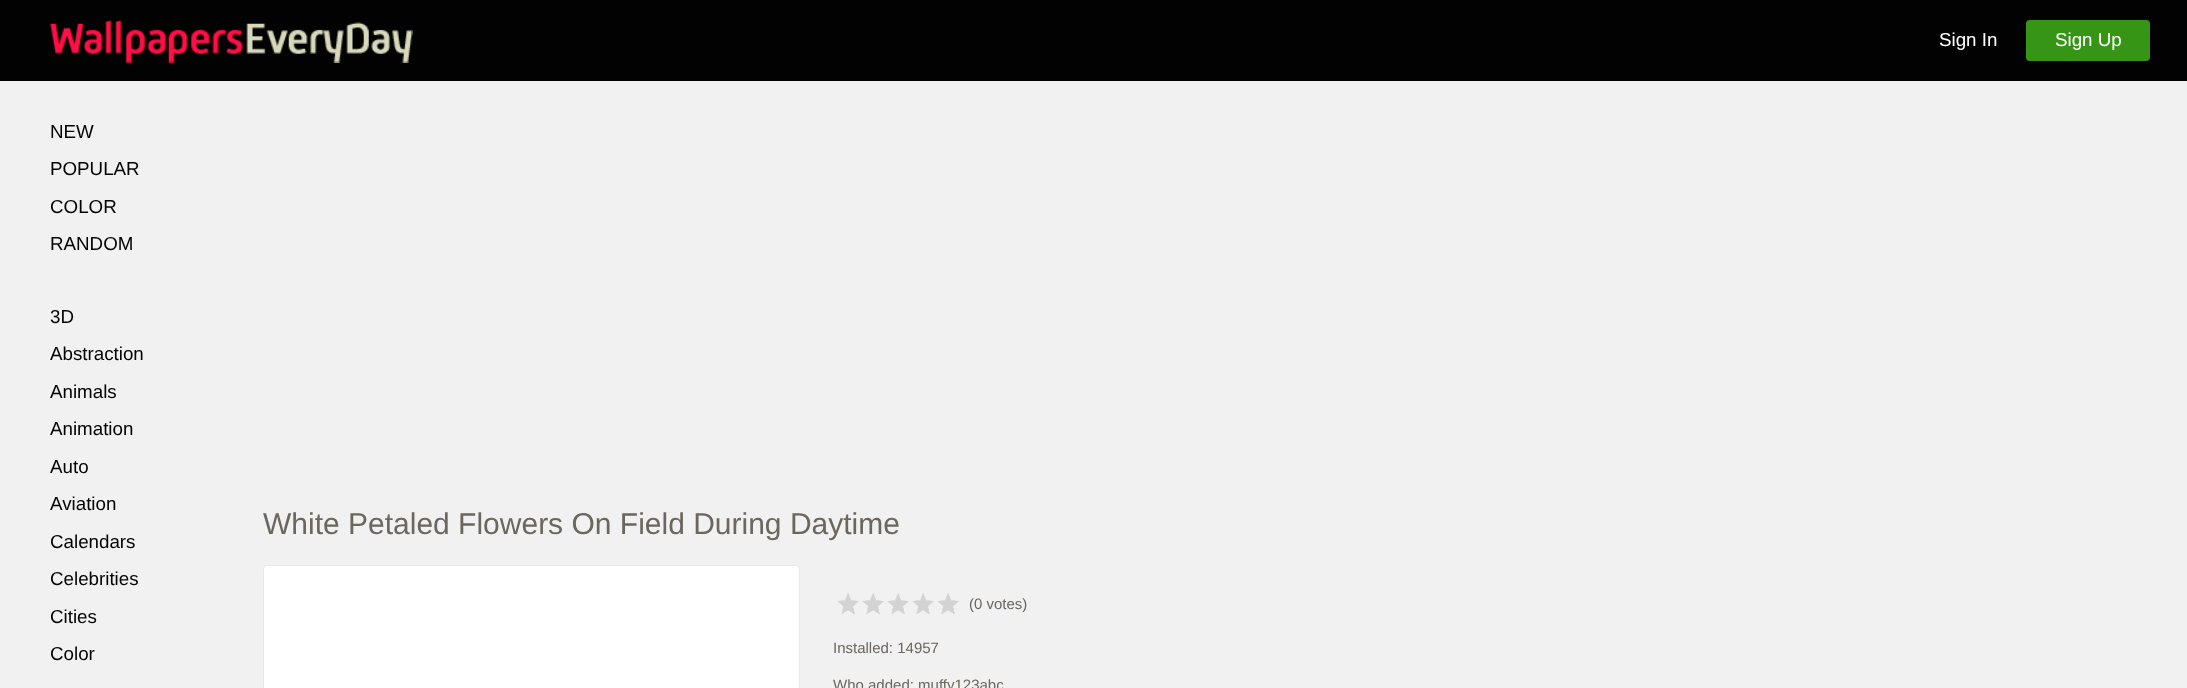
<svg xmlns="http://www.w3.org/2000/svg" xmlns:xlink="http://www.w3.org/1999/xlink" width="2187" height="688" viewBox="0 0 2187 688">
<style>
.cls-1{font:18.75px Liberation Sans;fill:#ffffff}
.cls-2{font:18.75px Liberation Sans;fill:#020202}
.cls-3{font:30px Liberation Sans;fill:#6b665e}
.cls-4{font:15px Liberation Sans;fill:#6b665e}
</style>
<rect width="100%" height="100%" fill="#f1f1f1"/>
<rect fill="#020202" x="0" y="0" width="2187" height="81"/>
<image xlink:href="image0.png" x="50" y="20" width="363" height="43"/>
<rect fill="#379516" x="2026" y="20" width="124" height="41" rx="4"/>
<rect fill="#ffffff" stroke="#eaeae3" x="263.5" y="565.5" width="536" height="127" rx="3.5"/>
<image xlink:href="image1.png" x="837" y="593" width="22" height="21"/>
<image xlink:href="image1.png" x="862" y="593" width="22" height="21"/>
<image xlink:href="image1.png" x="887" y="593" width="22" height="21"/>
<image xlink:href="image1.png" x="912" y="593" width="22" height="21"/>
<image xlink:href="image1.png" x="937" y="593" width="22" height="21"/>
<text class="cls-1" x="1939" y="46">Sign In</text>
<text class="cls-1" x="2055" y="46">Sign Up</text>
<text class="cls-2"><tspan x="50" y="138">NEW</tspan><tspan x="50" y="175">POPULAR</tspan></text>
<text class="cls-2"><tspan x="50" y="213">COLOR</tspan><tspan x="50" y="250">RANDOM</tspan></text>
<text class="cls-2"><tspan x="50" y="323">3D</tspan><tspan x="50" y="360">Abstraction</tspan></text>
<text class="cls-2"><tspan x="50" y="398">Animals</tspan><tspan x="50" y="435">Animation</tspan></text>
<text class="cls-2"><tspan x="50" y="473">Auto</tspan><tspan x="50" y="510">Aviation</tspan></text>
<text class="cls-2"><tspan x="50" y="548">Calendars</tspan><tspan x="50" y="585">Celebrities</tspan></text>
<text class="cls-2"><tspan x="50" y="623">Cities</tspan><tspan x="50" y="660">Color</tspan></text>
<text class="cls-3" x="263" y="534">White Petaled Flowers On Field During Daytime</text>
<text class="cls-4" x="969" y="609">(0 votes)</text>
<text class="cls-4" x="833" y="653">Installed: 14957</text>
<text class="cls-4" x="833" y="690">Who added: muffy123abc</text>
</svg>
